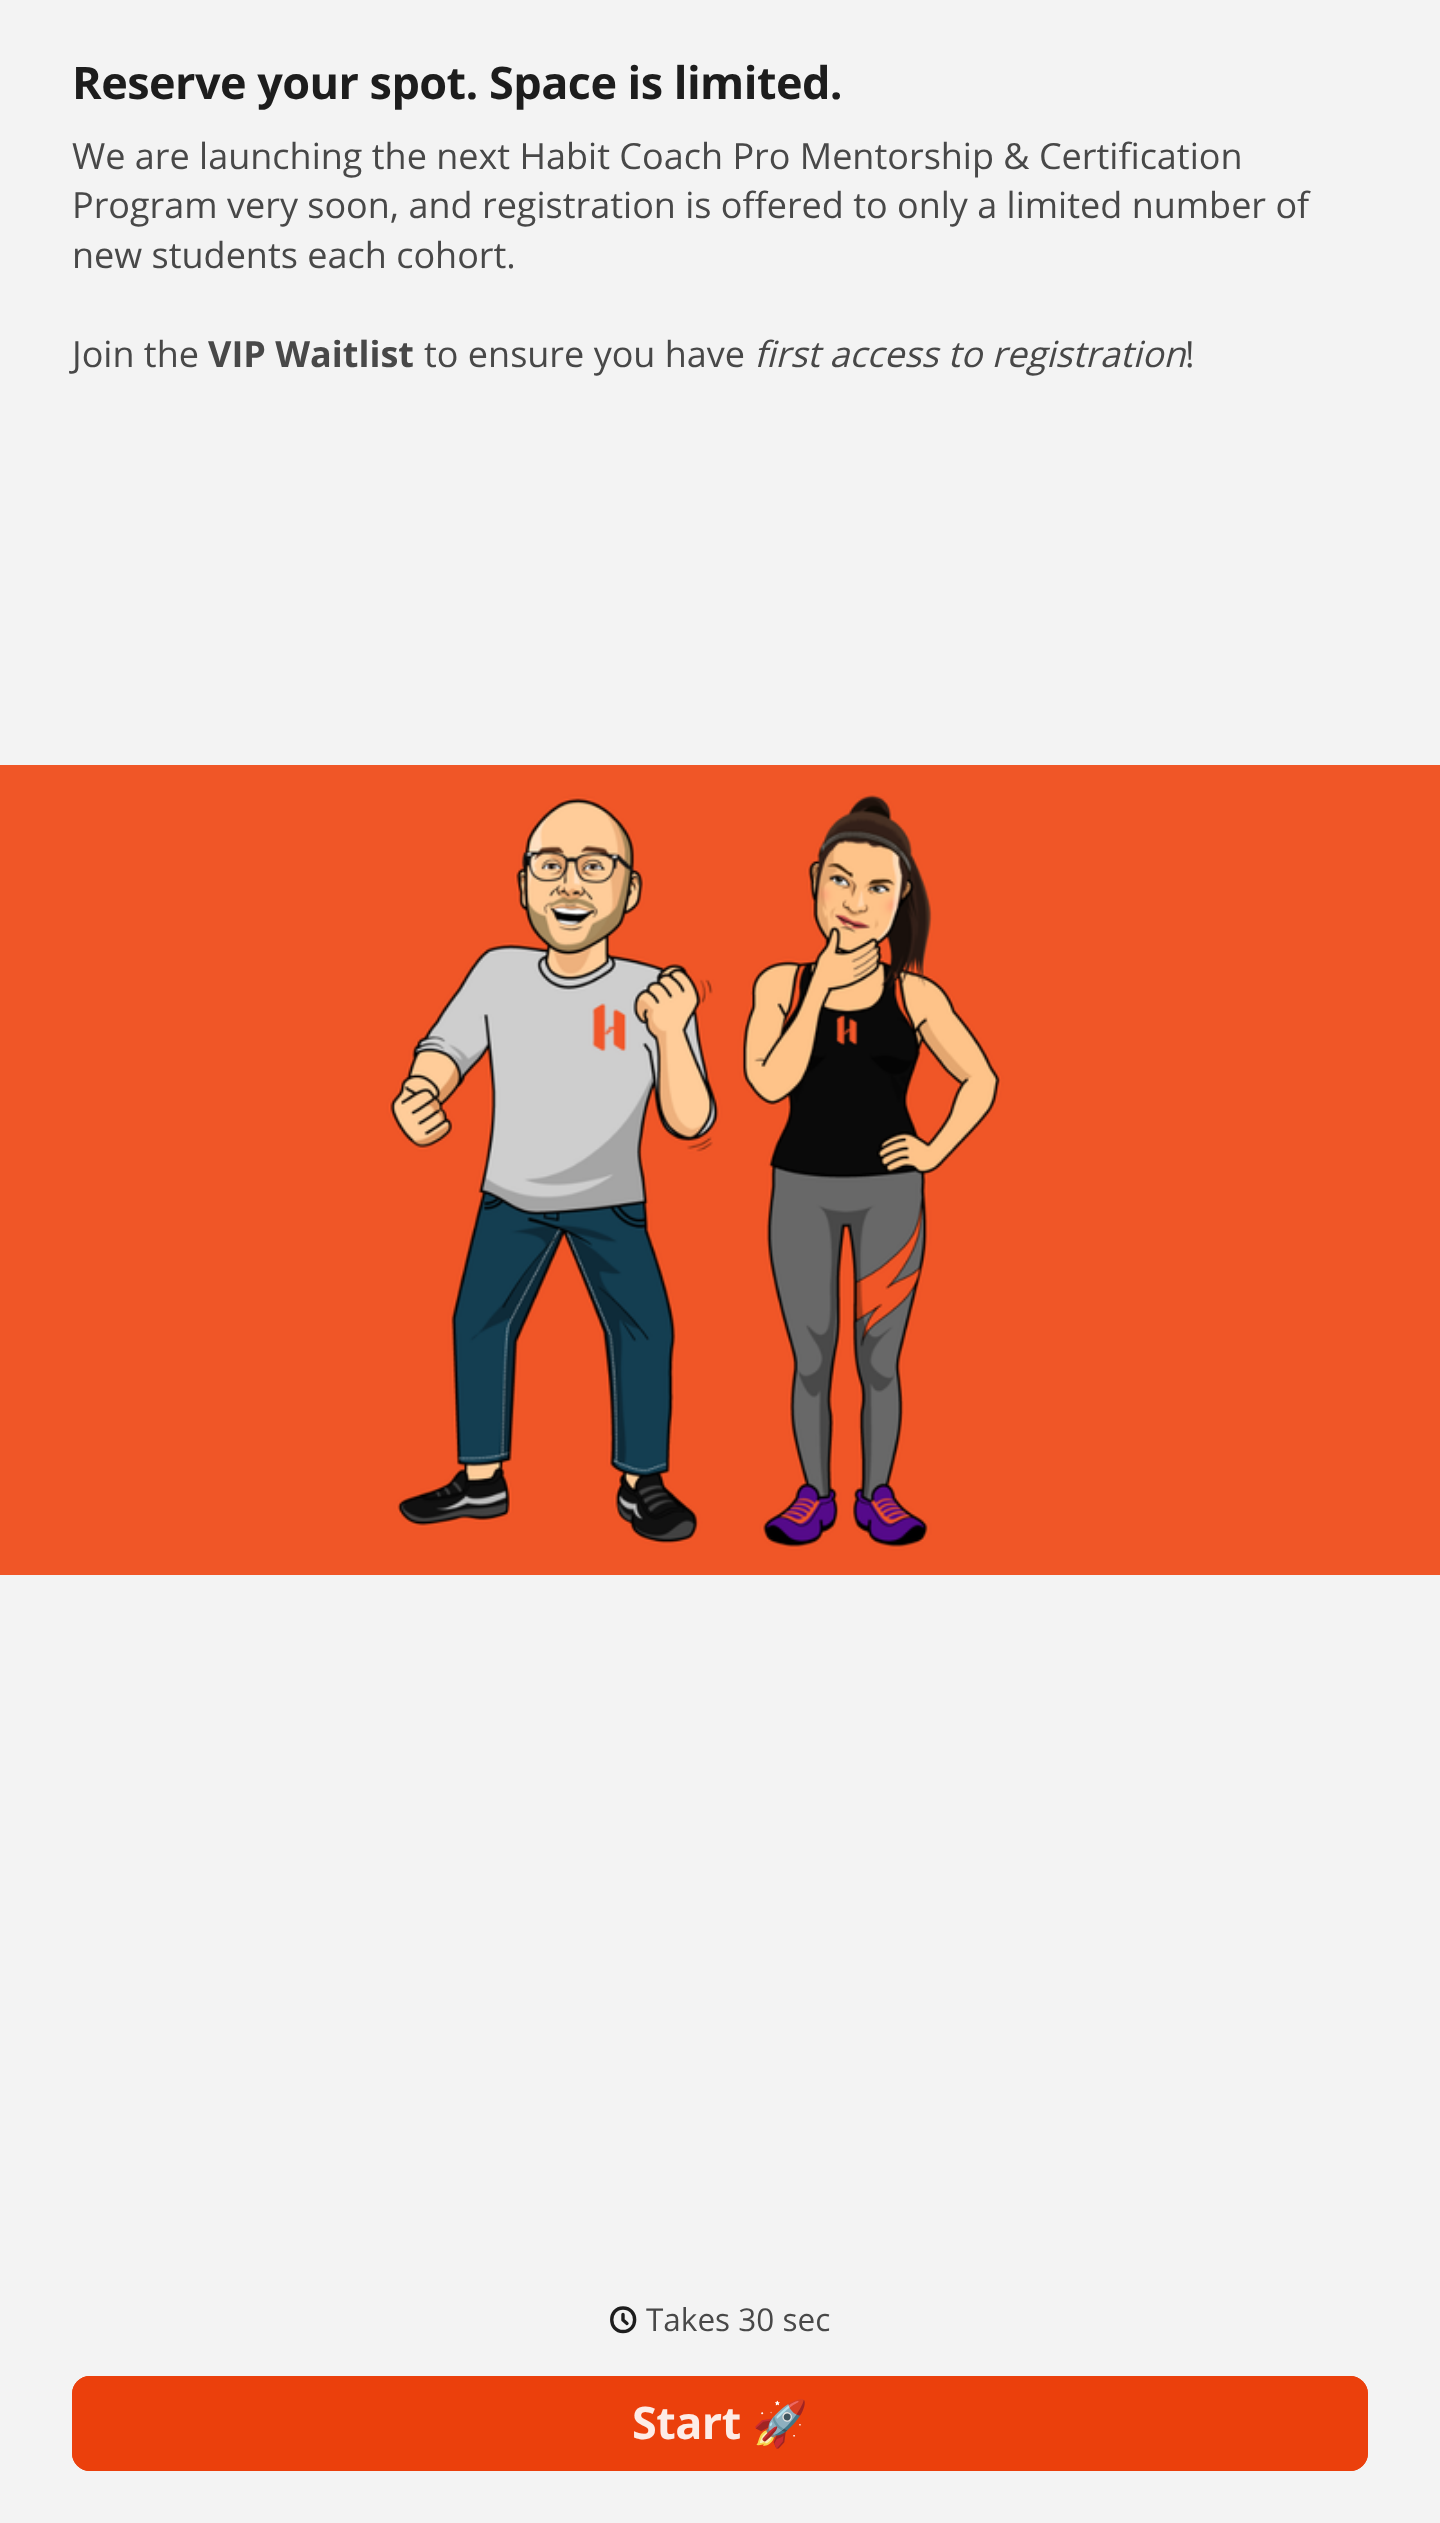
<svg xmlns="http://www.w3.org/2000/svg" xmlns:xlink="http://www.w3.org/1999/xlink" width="1440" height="2523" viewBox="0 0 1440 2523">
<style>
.cls-1{font:bold 45px Open Sans;letter-spacing:-0.55px;fill:#1d1d1d}
.cls-2{font:36px Open Sans;fill:#484848}
.cls-3{font:bold 36px Open Sans;fill:#484848}
.cls-4{font:italic 36px Open Sans;fill:#484848}
.cls-5{font:31.5px Open Sans;fill:#484848}
.cls-6{font:bold 45px Open Sans;letter-spacing:-0.55px;fill:#fdece7}
.cls-7{font:bold 45px Noto Color Emoji;letter-spacing:-0.55px;fill:#fdece7}
</style>
<rect width="100%" height="100%" fill="#f3f3f3"/>
<image xlink:href="image0.png" x="0" y="765" width="1440" height="810"/>
<path fill="none" stroke="#1d1d1d" stroke-width="3.4" stroke-linecap="round" stroke-linejoin="round" d="M627 2323.5L623 2320M623 2320V2314.5M623 2331.5C638.5 2331.5 638.5 2308 623 2308C608 2308 608 2331.5 623 2331.5Z"/>
<rect fill="none" stroke="#eb400c" stroke-width="2" x="73" y="2377" width="1294" height="93" rx="17"/>
<rect fill="#eb400c" x="72" y="2376" width="1296" height="95" rx="18"/>
<text class="cls-1" x="72" y="99">Reserve your spot. Space is limited.</text>
<text class="cls-2"><tspan x="72" y="169">We are launching the next Habit Coach Pro Mentorship &amp; Certification</tspan><tspan x="72" y="218">Program very soon, and registration is offered to only a limited number of</tspan><tspan x="72" y="268">new students each cohort.</tspan></text>
<text class="cls-2" x="72" y="367">Join the</text>
<text class="cls-3" x="208" y="367">VIP Waitlist</text>
<text class="cls-2" x="424" y="367">to ensure you have</text>
<text class="cls-4" x="754" y="367">first access to registration</text>
<text class="cls-2" x="1185" y="367">!</text>
<text class="cls-5" x="646" y="2331">Takes 30 sec</text>
<text class="cls-6" x="632" y="2439">Start</text>
<text class="cls-7" x="752" y="2439">🚀</text>
</svg>
